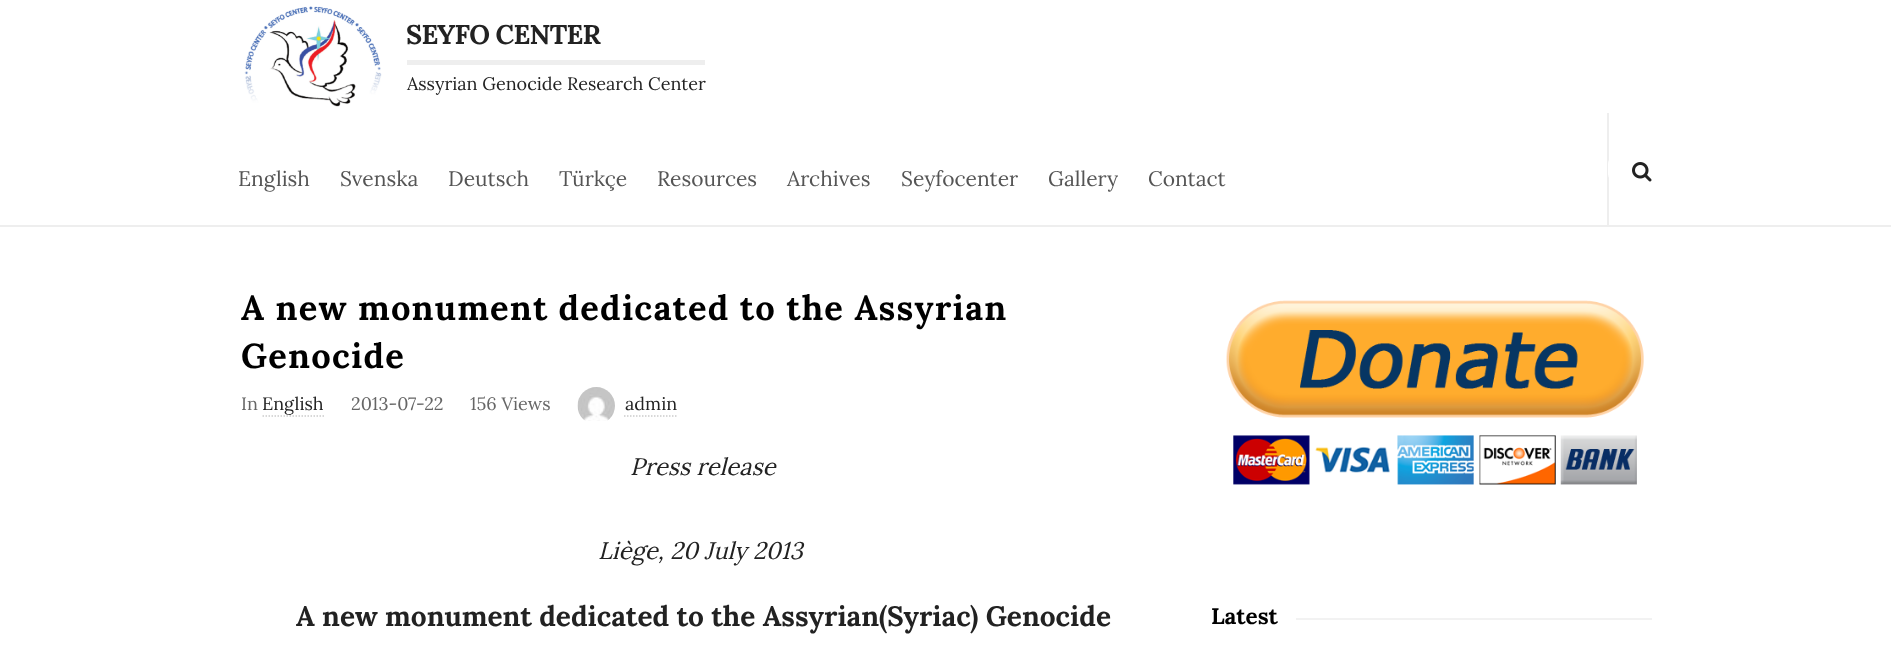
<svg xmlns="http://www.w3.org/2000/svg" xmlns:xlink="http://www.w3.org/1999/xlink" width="1891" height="654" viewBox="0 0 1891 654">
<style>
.cls-1{font:bold 27px Lora;letter-spacing:-0.75px;fill:#222222}
.cls-2{font:18px Lora;fill:#222222}
.cls-3{font:21px Lora;fill:#555555}
.cls-4{font:bold 34.5px Lora;letter-spacing:1.2px;fill:#000000}
.cls-5{font:18px Lora;fill:#666666}
.cls-6{font:italic 24px Lora;fill:#222222}
.cls-7{font:bold 28px Lora;fill:#222222}
.cls-8{font:bold 22.5px Lora;fill:#000000}
</style>
<rect width="100%" height="100%" fill="#ffffff"/>
<rect fill="#eeeeee" x="0" y="225" width="1891" height="2"/>
<image xlink:href="image0.png" x="244" y="6" width="138" height="101"/>
<rect fill="#eeeeee" x="407" y="60" width="298" height="5"/>
<rect fill="#eeeeee" x="1607" y="113" width="2" height="112"/>
<rect fill="#ffffff" x="1608" y="156" width="44" height="26" rx="8"/>
<image xlink:href="image1.png" x="1632" y="162" width="20" height="20"/>
<path fill="none" stroke="#cccccc" stroke-width="1.5" stroke-dasharray="1.5 1.5" d="M262.5 416H324"/>
<image xlink:href="image2.png" x="577" y="387" width="38" height="34"/>
<path fill="none" stroke="#cccccc" stroke-width="1.5" stroke-dasharray="1.5 1.5" d="M624 416H676.5"/>
<image xlink:href="image3.png" x="1226" y="300" width="418" height="185"/>
<rect fill="#f2f2f2" x="1296" y="618" width="356" height="2"/>
<text class="cls-1" x="406" y="44">SEYFO CENTER</text>
<text class="cls-2" x="407" y="90">Assyrian Genocide Research Center</text>
<text class="cls-3" x="238" y="186">English</text>
<text class="cls-3" x="340" y="186">Svenska</text>
<text class="cls-3" x="448" y="186">Deutsch</text>
<text class="cls-3" x="559" y="186">Türkçe</text>
<text class="cls-3" x="657" y="186">Resources</text>
<text class="cls-3" x="787" y="186">Archives</text>
<text class="cls-3" x="901" y="186">Seyfocenter</text>
<text class="cls-3" x="1048" y="186">Gallery</text>
<text class="cls-3" x="1148" y="186">Contact</text>
<text class="cls-4"><tspan x="241" y="320">A new monument dedicated to the Assyrian</tspan><tspan x="241" y="368">Genocide</tspan></text>
<text class="cls-5" x="241" y="410">In</text>
<text class="cls-2" x="262" y="410">English</text>
<text class="cls-5" x="351" y="410">2013-07-22</text>
<text class="cls-5" x="470" y="410">156 Views</text>
<text class="cls-2" x="625" y="410">admin</text>
<text class="cls-6" x="630" y="475">Press release</text>
<text class="cls-6" x="598" y="559">Liège, 20 July 2013</text>
<text class="cls-7" x="296" y="626">A new monument dedicated to the Assyrian(Syriac) Genocide</text>
<text class="cls-8" x="1211" y="624">Latest</text>
</svg>
